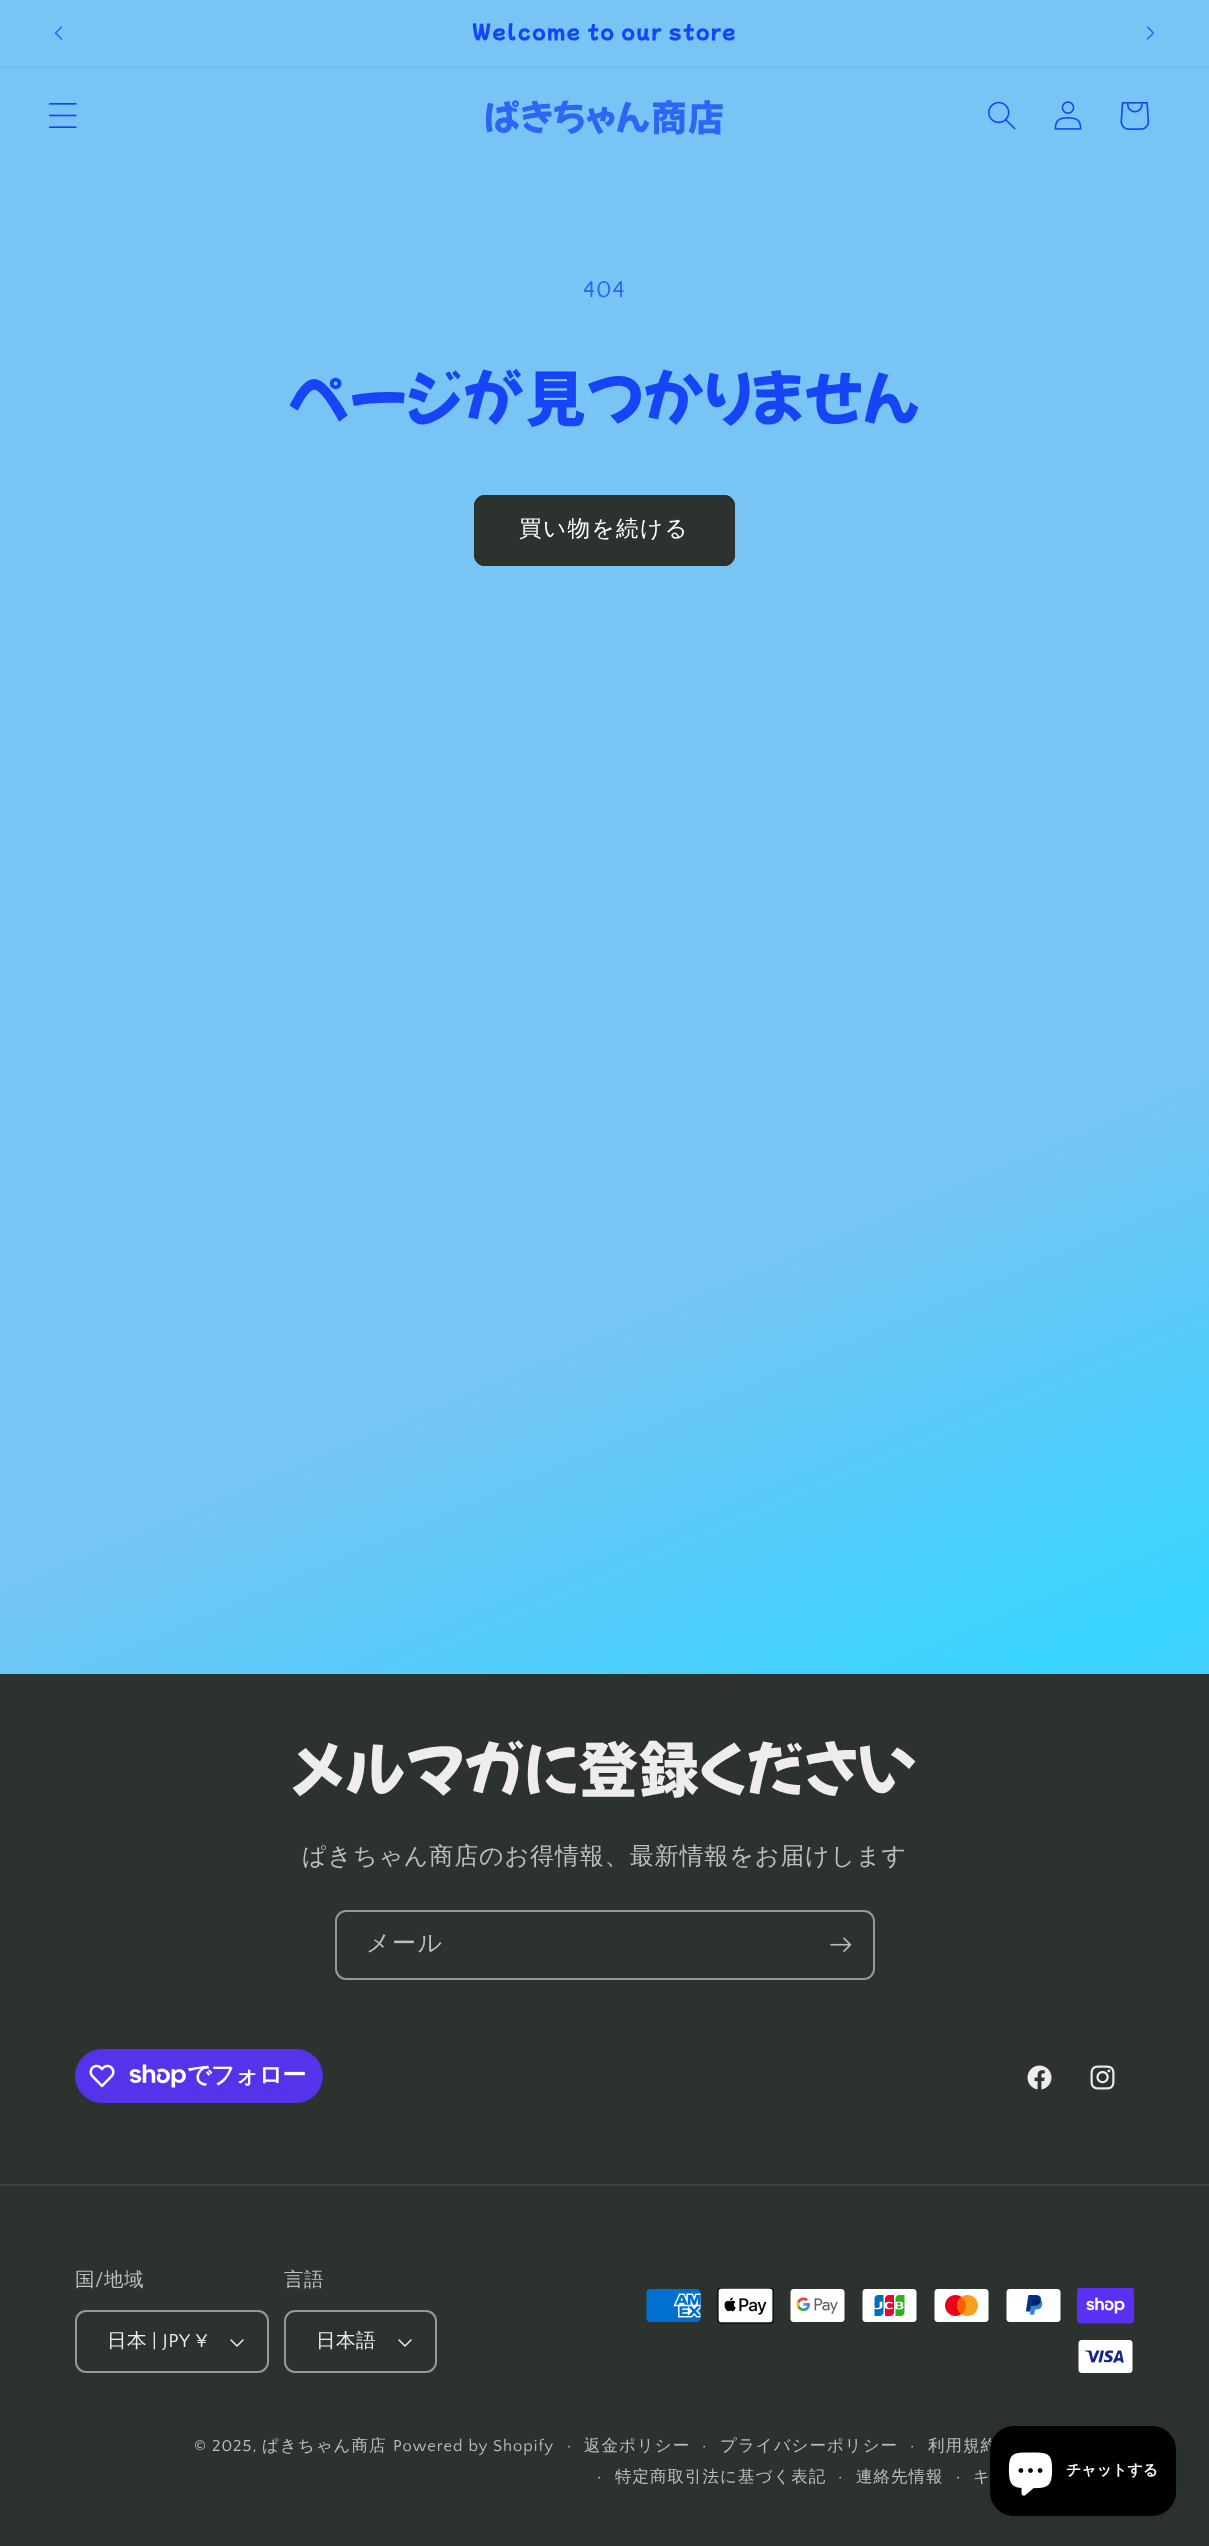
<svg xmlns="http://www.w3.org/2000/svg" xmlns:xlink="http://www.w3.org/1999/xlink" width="1209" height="2546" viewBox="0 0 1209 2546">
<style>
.cls-1{font:19.5px Mochiy Pop P One;letter-spacing:1.5px;fill:#1745f5}
.cls-2{font:36px Mochiy Pop P One;letter-spacing:0.9px;fill:#2f65f5}
.cls-3{font:24px Quattrocento Sans;letter-spacing:0.9px;fill:#2f65f5}
.cls-4{font:60px Mochiy Pop P One;letter-spacing:0.9px;fill:#1745f5}
.cls-5{font:500 22.5px WenQuanYi Zen Hei;letter-spacing:1.5px;fill:#ffffff}
.cls-6{font:60px Mochiy Pop P One;letter-spacing:0.9px;fill:#efecec}
.cls-7{font:500 24px WenQuanYi Zen Hei;letter-spacing:0.9px;fill:#bebebd}
.cls-8{font:500 24px WenQuanYi Zen Hei;letter-spacing:1.5px;fill:#bebebd}
.cls-9{font:bold 24px WenQuanYi Zen Hei;letter-spacing:-0.75px;fill:#ffffff}
.cls-10{font:500 19.5px WenQuanYi Zen Hei;letter-spacing:0.5px;fill:#bebebd}
.cls-11{font:19.5px Quattrocento Sans;letter-spacing:0.5px;fill:#bebebd}
.cls-12{font:500 19.5px WenQuanYi Zen Hei;letter-spacing:0.5px;fill:#efecec}
.cls-13{font:19.5px Quattrocento Sans;letter-spacing:0.5px;fill:#efecec}
.cls-14{font:16.5px Quattrocento Sans;letter-spacing:1px;fill:#bebebd}
.cls-15{font:500 16.5px WenQuanYi Zen Hei;letter-spacing:1px;fill:#bebebd}
.cls-16{font:18px Quattrocento Sans;letter-spacing:1px;fill:#bebebd}
.cls-17{font:bold 15px WenQuanYi Zen Hei;fill:#ffffff}
</style>
<defs>
<linearGradient id="g1" gradientUnits="userSpaceOnUse" x1="1155" y1="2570" x2="54" y2="-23"><stop offset="0" stop-color="#f4ef86"/><stop offset="0.13" stop-color="#7eb3f5"/><stop offset="0.31" stop-color="#38d4ff"/><stop offset="0.49" stop-color="#78c4f5"/></linearGradient>
</defs>
<rect width="100%" height="100%" fill="#ffffff"/>
<rect fill="url(#g1)" x="0" y="0" width="1209" height="1674"/>
<rect fill="#70baf5" x="0" y="66" width="1209" height="2"/>
<image xlink:href="image0.png" x="54" y="26" width="9" height="14"/>
<image xlink:href="image1.png" x="1146" y="26" width="9" height="14"/>
<image xlink:href="image2.png" x="48" y="103" width="29" height="25"/>
<image xlink:href="image3.png" x="988" y="101" width="28" height="29"/>
<image xlink:href="image4.png" x="1054" y="101" width="28" height="29"/>
<image xlink:href="image5.png" x="1120" y="102" width="30" height="28"/>
<rect fill="#2c332f" x="474" y="495" width="261" height="71" rx="11"/>
<rect fill="none" stroke="#2c332f" stroke-width="2" x="475" y="496" width="259" height="69" rx="10"/>
<rect fill="#2c332f" x="0" y="1674" width="1209" height="872"/>
<rect fill="none" stroke="#979997" stroke-width="2" x="336" y="1911" width="538" height="68" rx="10"/>
<image xlink:href="image6.png" x="830" y="1937" width="22" height="15"/>
<rect fill="#5433eb" x="75" y="2049" width="248" height="54" rx="27"/>
<image xlink:href="image7.png" x="89" y="2064" width="26" height="24"/>
<image xlink:href="image8.png" x="129" y="2064" width="57" height="24"/>
<image xlink:href="image9.png" x="1027" y="2065" width="25" height="25"/>
<image xlink:href="image10.png" x="1090" y="2065" width="25" height="25"/>
<rect fill="#3c423e" x="0" y="2184" width="1209" height="2"/>
<image xlink:href="image11.png" x="230" y="2339" width="14" height="8"/>
<rect fill="none" stroke="#979997" stroke-width="2" x="76" y="2311" width="192" height="61" rx="10"/>
<image xlink:href="image11.png" x="398" y="2339" width="14" height="8"/>
<rect fill="none" stroke="#979997" stroke-width="2" x="285" y="2311" width="151" height="61" rx="10"/>
<image xlink:href="image12.png" x="646" y="2289" width="55" height="33"/>
<image xlink:href="image13.png" x="717" y="2288" width="57" height="36"/>
<image xlink:href="image14.png" x="790" y="2289" width="55" height="33"/>
<image xlink:href="image15.png" x="862" y="2289" width="55" height="33"/>
<image xlink:href="image16.png" x="934" y="2289" width="55" height="33"/>
<image xlink:href="image17.png" x="1006" y="2289" width="55" height="33"/>
<image xlink:href="image18.png" x="1077" y="2288" width="57" height="36"/>
<image xlink:href="image19.png" x="1078" y="2340" width="55" height="33"/>
<rect fill="#000000" fill-opacity="0.15" filter="blur(4px)" x="990" y="2426" width="186" height="90" rx="24"/>
<text class="cls-1" x="472" y="39">Welcome to our store</text>
<text class="cls-2" x="485" y="131">ぱきちゃん商店</text>
<text class="cls-3" x="583" y="297">404</text>
<text class="cls-4" x="288" y="421">ページが見つかりません</text>
<text class="cls-5" x="519" y="536">買い物を続ける</text>
<text class="cls-6" x="291" y="1792">メルマガに登録ください</text>
<text class="cls-7" x="302" y="1864">ぱきちゃん商店のお得情報、最新情報をお届けします</text>
<text class="cls-8" x="366" y="1951">メール</text>
<text class="cls-9" x="187" y="2083">でフォロー</text>
<text class="cls-10" x="75" y="2286">国</text>
<text class="cls-11" x="95" y="2286">/</text>
<text class="cls-10" x="104" y="2286">地域</text>
<text class="cls-12" x="107" y="2347">日本</text>
<text class="cls-13" x="152" y="2347">| JPY ¥</text>
<text class="cls-10" x="284" y="2286">言語</text>
<text class="cls-12" x="316" y="2347">日本語</text>
<text class="cls-14" x="194" y="2451">© 2025,</text>
<text class="cls-15" x="262" y="2451">ぱきちゃん商店</text>
<text class="cls-14" x="393" y="2451">Powered by Shopify</text>
<text class="cls-16" x="567" y="2451">·</text>
<text class="cls-15" x="584" y="2451">返金ポリシー</text>
<text class="cls-16" x="702" y="2451">·</text>
<text class="cls-15" x="720" y="2451">プライバシーポリシー</text>
<text class="cls-16" x="910" y="2451">·</text>
<text class="cls-15" x="928" y="2451">利用規約</text>
<text class="cls-16" x="597" y="2482">·</text>
<text class="cls-15" x="615" y="2482">特定商取引法に基づく表記</text>
<text class="cls-16" x="838" y="2482">·</text>
<text class="cls-15" x="856" y="2482">連絡先情報</text>
<text class="cls-16" x="956" y="2482">·</text>
<text class="cls-15" x="973" y="2482">キ</text>
<rect fill="#000000" x="990" y="2426" width="186" height="90" rx="24"/>
<image xlink:href="image20.png" x="1008" y="2452" width="45" height="44"/>
<text class="cls-17" x="1066" y="2475">チャットする</text>
</svg>
